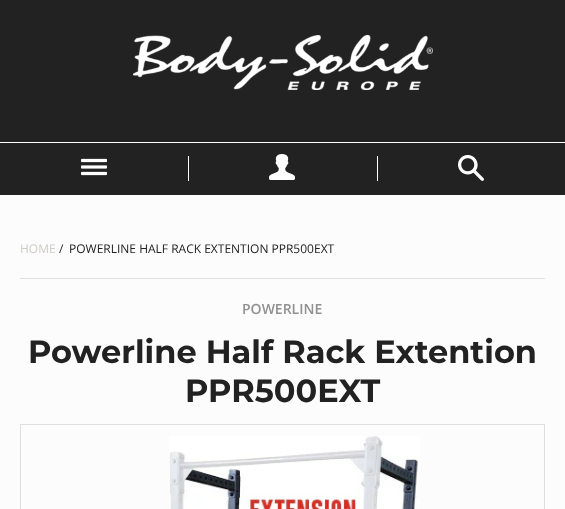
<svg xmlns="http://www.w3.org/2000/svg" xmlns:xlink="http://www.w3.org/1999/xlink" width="565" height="509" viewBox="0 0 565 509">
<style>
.cls-1{font:12px Open Sans;fill:#cfcbc6}
.cls-2{font:12px Open Sans;fill:#222222}
.cls-3{font:600 14px Open Sans;fill:#919191}
.cls-4{font:100 32px Montserrat;fill:#222222}
</style>
<rect width="100%" height="100%" fill="#fcfcfc"/>
<rect fill="#222222" x="0" y="0" width="565" height="195"/>
<image xlink:href="image0.png" x="133" y="35" width="300" height="55"/>
<rect fill="#ffffff" x="0" y="142" width="565" height="1"/>
<image xlink:href="image1.png" x="81" y="158" width="26" height="18"/>
<rect fill="#ffffff" x="188" y="156" width="1" height="25"/>
<image xlink:href="image2.png" x="269" y="154" width="26" height="26"/>
<rect fill="#ffffff" x="377" y="156" width="1" height="25"/>
<image xlink:href="image3.png" x="458" y="155" width="26" height="26"/>
<rect fill="#dfdfdf" x="20" y="278" width="525" height="1"/>
<rect fill="none" stroke="#dfdfdf" x="20.5" y="424.5" width="524" height="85"/>
<image xlink:href="image4.png" x="169" y="436" width="251" height="73"/>
<text class="cls-1" x="20" y="253">HOME</text>
<text class="cls-2" x="59" y="253">/</text>
<text class="cls-2" x="69" y="253">POWERLINE HALF RACK EXTENTION PPR500EXT</text>
<text class="cls-3" x="242" y="314">POWERLINE</text>
<text class="cls-4" x="28" y="363">Powerline Half Rack Extention</text>
<text class="cls-4" x="185" y="402">PPR500EXT</text>
</svg>
